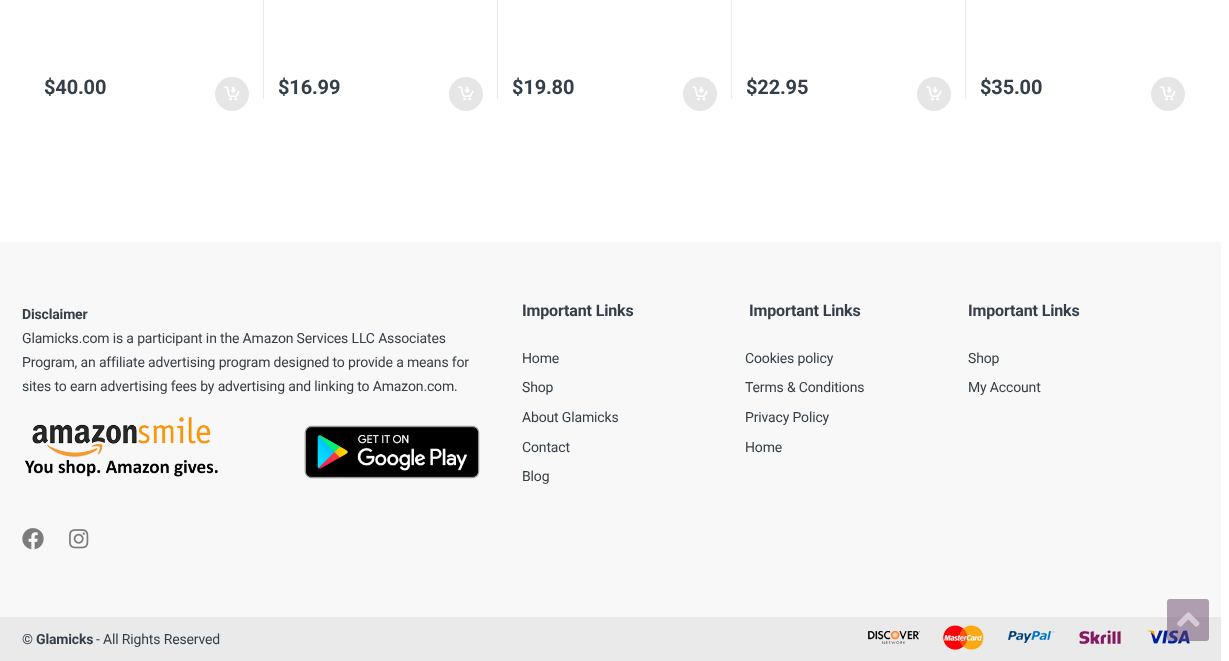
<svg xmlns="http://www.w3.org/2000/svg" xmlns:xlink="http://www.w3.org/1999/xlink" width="1229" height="661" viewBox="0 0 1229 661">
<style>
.cls-1{font:bold 20px Roboto;letter-spacing:-0.15px;fill:#343f49}
.cls-2{font:bold 14px Roboto;letter-spacing:-0.15px;fill:#343f49}
.cls-3{font:14px Roboto;letter-spacing:-0.15px;fill:#343f49}
.cls-4{font:bold 16px Roboto;letter-spacing:-0.15px;fill:#343f49}
</style>
<rect width="100%" height="100%" fill="#ffffff"/>
<circle fill="#e6e6e6" cx="232" cy="94" r="17"/>
<image xlink:href="image0.png" x="224" y="86" width="16" height="15"/>
<rect fill="#eaeaea" x="263" y="0" width="1" height="99"/>
<circle fill="#e6e6e6" cx="466" cy="94" r="17"/>
<image xlink:href="image0.png" x="458" y="86" width="16" height="15"/>
<rect fill="#eaeaea" x="497" y="0" width="1" height="99"/>
<circle fill="#e6e6e6" cx="700" cy="94" r="17"/>
<image xlink:href="image0.png" x="692" y="86" width="16" height="15"/>
<rect fill="#eaeaea" x="731" y="0" width="1" height="99"/>
<circle fill="#e6e6e6" cx="934" cy="94" r="17"/>
<image xlink:href="image0.png" x="926" y="86" width="16" height="15"/>
<rect fill="#eaeaea" x="965" y="0" width="1" height="99"/>
<circle fill="#e6e6e6" cx="1168" cy="94" r="17"/>
<image xlink:href="image0.png" x="1160" y="86" width="16" height="15"/>
<rect fill="#f8f8f8" x="0" y="242" width="1221" height="375"/>
<image xlink:href="image1.png" x="24" y="417" width="194" height="60"/>
<image xlink:href="image2.png" x="304" y="425" width="176" height="54"/>
<image xlink:href="image3.png" x="22" y="528" width="22" height="22"/>
<image xlink:href="image4.png" x="69" y="529" width="20" height="20"/>
<rect fill="#eaeaea" x="0" y="617" width="1221" height="44"/>
<image xlink:href="image5.png" x="868" y="625" width="322" height="25"/>
<rect fill="#664366" fill-opacity="0.5" x="1167" y="599" width="42" height="42" rx="3"/>
<image xlink:href="image6.png" x="1177" y="612" width="23" height="15"/>
<text class="cls-1" x="44" y="94">$40.00</text>
<text class="cls-1" x="278" y="94">$16.99</text>
<text class="cls-1" x="512" y="94">$19.80</text>
<text class="cls-1" x="746" y="94">$22.95</text>
<text class="cls-1" x="980" y="94">$35.00</text>
<text class="cls-2" x="22" y="319">Disclaimer</text>
<text class="cls-3"><tspan x="22" y="343">Glamicks.com is a participant in the Amazon Services LLC Associates</tspan><tspan x="22" y="367">Program, an affiliate advertising program designed to provide a means for</tspan><tspan x="22" y="391">sites to earn advertising fees by advertising and linking to Amazon.com.</tspan></text>
<text class="cls-4" x="522" y="316">Important Links</text>
<text class="cls-3" x="522" y="363">Home</text>
<text class="cls-3" x="522" y="392">Shop</text>
<text class="cls-3" x="522" y="422">About Glamicks</text>
<text class="cls-3" x="522" y="452">Contact</text>
<text class="cls-3" x="522" y="481">Blog</text>
<text class="cls-4" x="749" y="316">Important Links</text>
<text class="cls-3" x="745" y="363">Cookies policy</text>
<text class="cls-3" x="745" y="392">Terms &amp; Conditions</text>
<text class="cls-3" x="745" y="422">Privacy Policy</text>
<text class="cls-3" x="745" y="452">Home</text>
<text class="cls-4" x="968" y="316">Important Links</text>
<text class="cls-3" x="968" y="363">Shop</text>
<text class="cls-3" x="968" y="392">My Account</text>
<text class="cls-3" x="22" y="644">©</text>
<text class="cls-2" x="36" y="644">Glamicks</text>
<text class="cls-3" x="96" y="644">- All Rights Reserved</text>
</svg>
